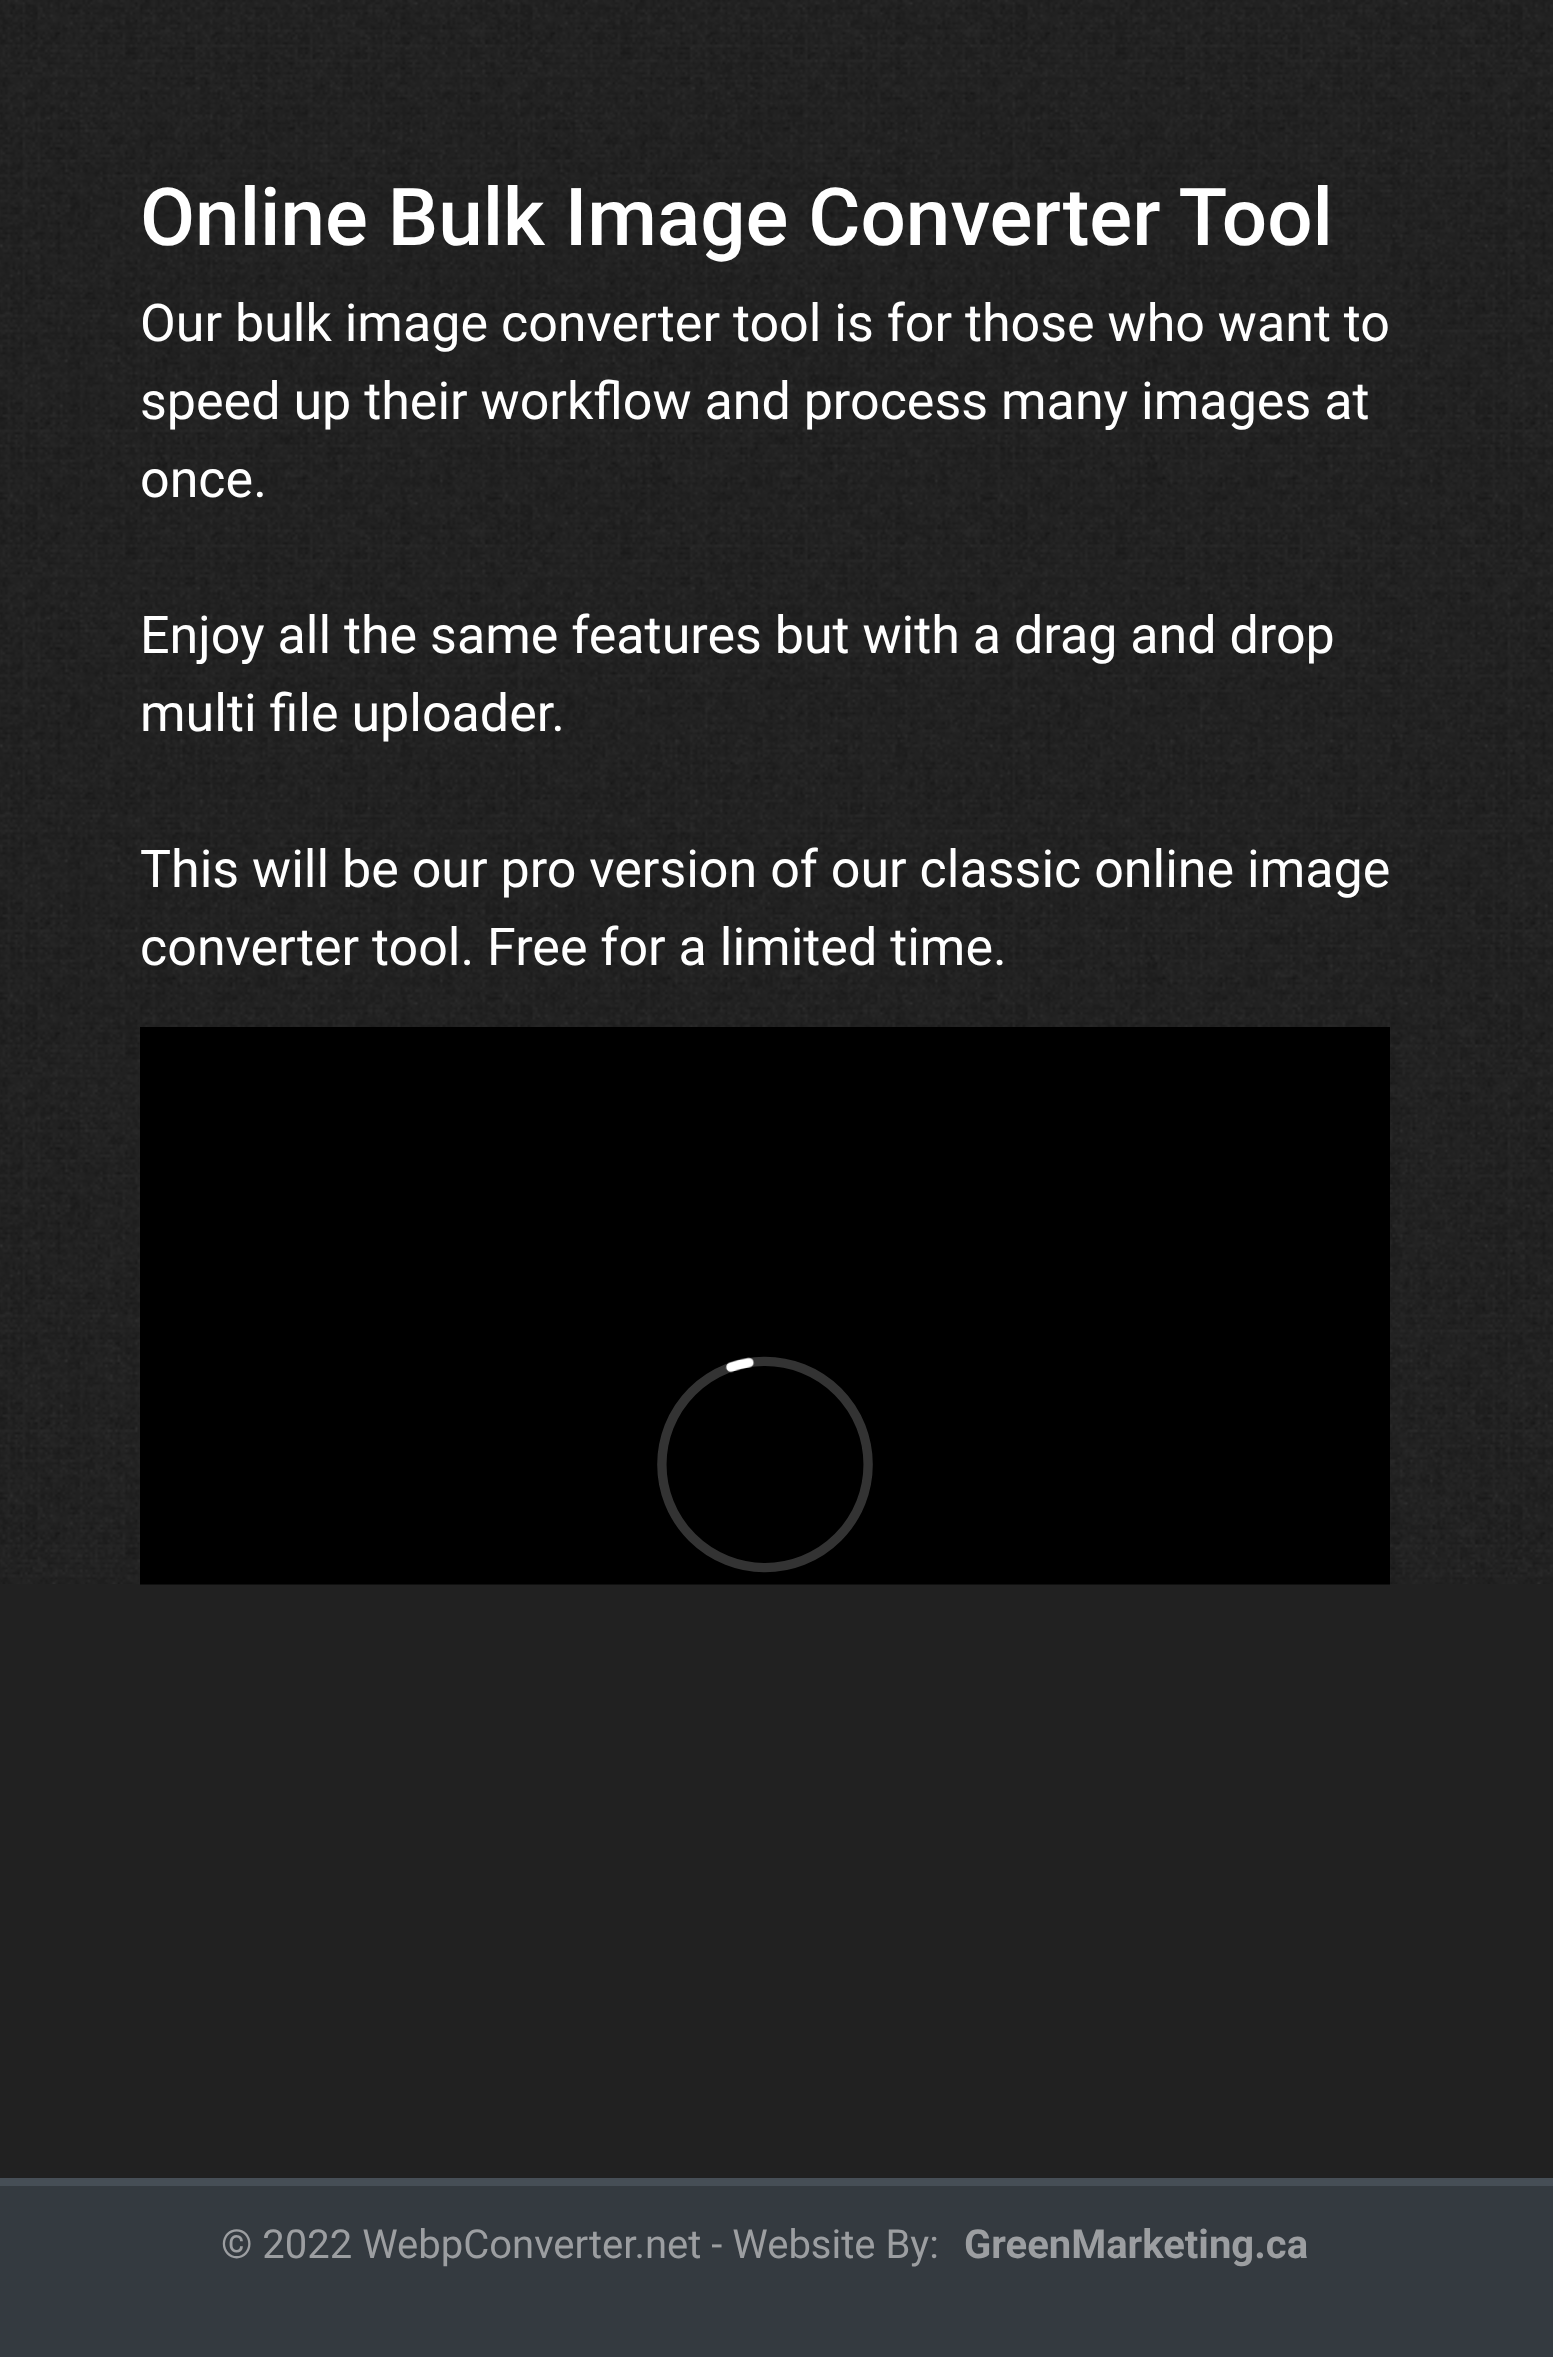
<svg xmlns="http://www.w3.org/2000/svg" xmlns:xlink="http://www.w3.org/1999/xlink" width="1553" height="2357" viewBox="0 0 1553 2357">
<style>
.cls-1{font:500 80px Roboto;fill:#ffffff}
.cls-2{font:52px Roboto;fill:#ffffff}
.cls-3{font:40px Roboto;fill:#9c9ea1}
.cls-4{font:bold 40px Roboto;fill:#9c9ea1}
</style>
<rect width="100%" height="100%" fill="#212121"/>
<image xlink:href="image0.png" x="0" y="0" width="1553" height="1584"/>
<image xlink:href="image1.png" x="140" y="1027" width="1250" height="558"/>
<rect fill="#343a40" x="0" y="2186" width="1553" height="171"/>
<rect fill="#464e56" x="0" y="2178" width="1553" height="8"/>
<text class="cls-1" x="140" y="245">Online Bulk Image Converter Tool</text>
<text class="cls-2"><tspan x="140" y="341">Our bulk image converter tool is for those who want to</tspan><tspan x="140" y="419">speed up their workflow and process many images at</tspan><tspan x="140" y="497">once.</tspan></text>
<text class="cls-2"><tspan x="140" y="653">Enjoy all the same features but with a drag and drop</tspan><tspan x="140" y="731">multi file uploader.</tspan></text>
<text class="cls-2"><tspan x="140" y="887">This will be our pro version of our classic online image</tspan><tspan x="140" y="965">converter tool. Free for a limited time.</tspan></text>
<text class="cls-3" x="221" y="2258">© 2022 WebpConverter.net - Website By:</text>
<text class="cls-4" x="964" y="2258">GreenMarketing.ca</text>
</svg>
